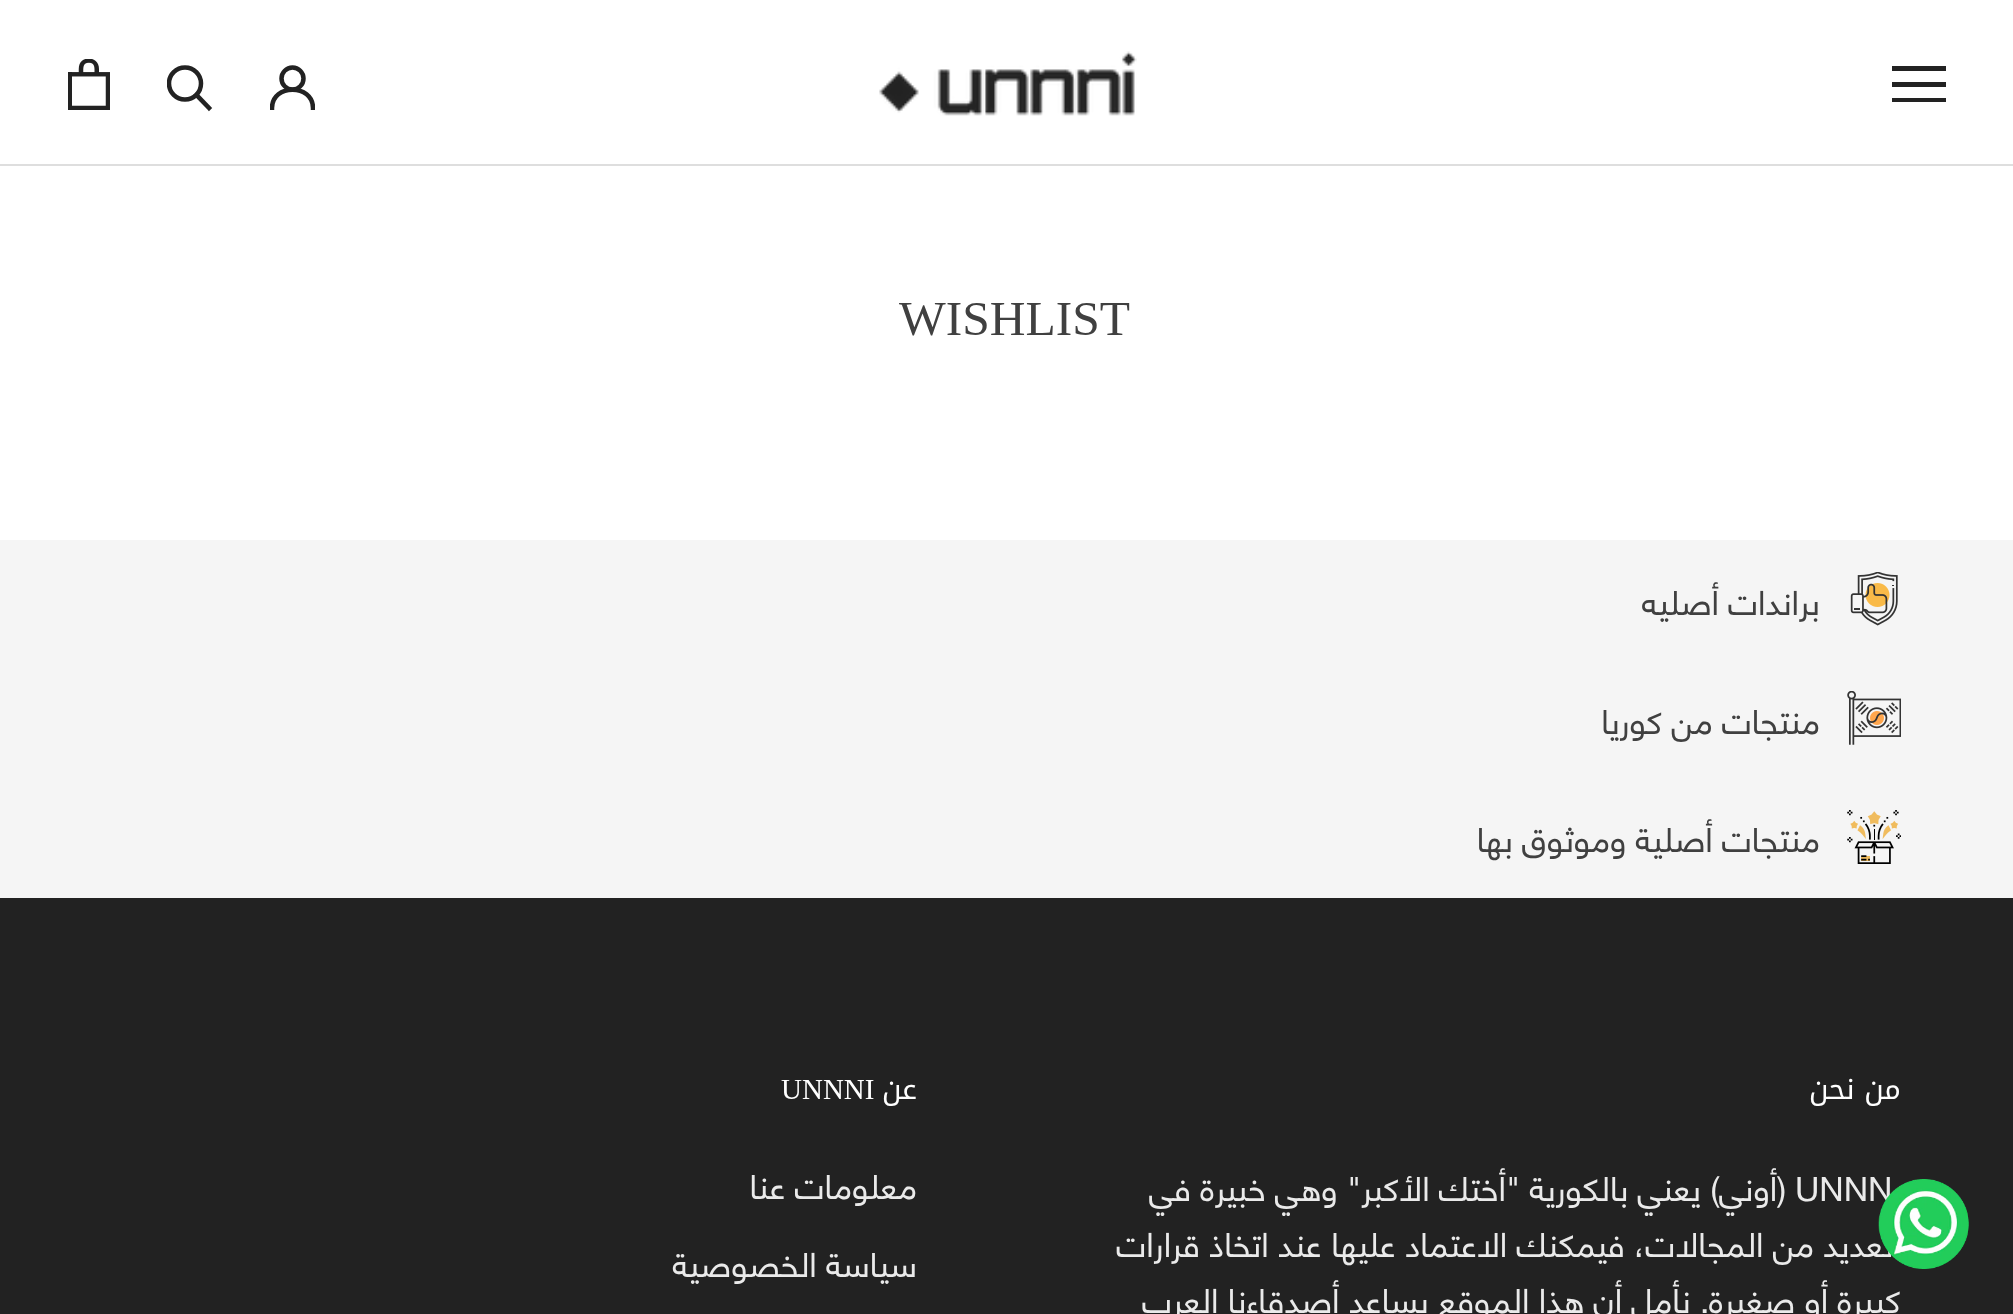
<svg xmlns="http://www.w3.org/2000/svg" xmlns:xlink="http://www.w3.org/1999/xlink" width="2013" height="1314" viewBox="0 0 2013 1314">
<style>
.cls-1{font:49.5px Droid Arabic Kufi;fill:#404040}
.cls-2{font:33.75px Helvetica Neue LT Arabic;direction:rtl;fill:#404040}
.cls-3{font:29px Droid Arabic Kufi;direction:rtl;fill:#ffffff}
.cls-4{font:33.75px Helvetica Neue LT Arabic;fill:#eaeaea}
.cls-5{font:33.75px Helvetica Neue LT Arabic;direction:rtl;fill:#eaeaea}
.cls-6{font:29px Droid Arabic Kufi;fill:#ffffff}
</style>
<defs>
<clipPath id="clip1"><rect x="270" y="65" width="45" height="45"/></clipPath>
<clipPath id="clip2"><rect x="167" y="65" width="47" height="48"/></clipPath>
</defs>
<rect width="100%" height="100%" fill="#ffffff"/>
<rect fill="#dedede" x="0" y="164" width="2013" height="2"/>
<path fill="#222222" d="M1892 102V98H1946V102ZM1892 82H1946V87H1892ZM1892 66H1946V71H1892Z"/>
<image xlink:href="image1.png" x="879" y="51" width="258" height="65"/>
<g clip-path="url(#clip1)">
<path fill="none" stroke="#222222" stroke-width="4.5" stroke-linecap="square" d="M272 108C272 83.5 313 83.5 313 108"/>
</g>
<circle fill="none" stroke="#222222" stroke-width="4.5" cx="292.5" cy="78.5" r="11"/>
<path fill="none" stroke="#222222" stroke-width="4.5" stroke-linecap="square" d="M209 108L196.5 95"/>
<g clip-path="url(#clip2)">
<circle fill="none" stroke="#222222" stroke-width="4.5" cx="185" cy="83.5" r="16"/>
</g>
<image xlink:href="image2.png" x="68" y="59" width="42" height="51"/>
<rect fill="#f5f5f5" x="0" y="540" width="2013" height="358"/>
<image xlink:href="image3.png" x="1850" y="572" width="48" height="54"/>
<image xlink:href="image4.png" x="1847" y="691" width="54" height="54"/>
<image xlink:href="image5.png" x="1847" y="810" width="54" height="54"/>
<rect fill="#222222" x="0" y="898" width="2013" height="416"/>
<text class="cls-1" x="899" y="335">WISHLIST</text>
<text class="cls-2" x="1820" y="615">براندات أصليه</text>
<text class="cls-2" x="1820" y="734">منتجات من كوريا</text>
<text class="cls-2" x="1820" y="852">منتجات أصلية وموثوق بها</text>
<text class="cls-3" x="1901" y="1099">من نحن</text>
<text class="cls-4" x="1795" y="1201">UNNN</text>
<text class="cls-5" x="1786" y="1201">(أوني) يعني بالكورية "أختك الأكبر" وهي خبيرة في</text>
<text class="cls-5" x="1901" y="1257">العديد من المجالات، فيمكنك الاعتماد عليها عند اتخاذ قرارات</text>
<image xlink:href="image0.png" x="1878" y="1179" width="91" height="90"/>
<text class="cls-5" x="1901" y="1313">كبيرة أو صغيرة. نأمل أن هذا الموقع يساعد أصدقاءنا العرب</text>
<text class="cls-3" x="917" y="1099">عن</text>
<text class="cls-6" x="781" y="1099">UNNNI</text>
<text class="cls-5" x="917" y="1199">معلومات عنا</text>
<text class="cls-5" x="917" y="1277">سياسة الخصوصية</text>
</svg>
